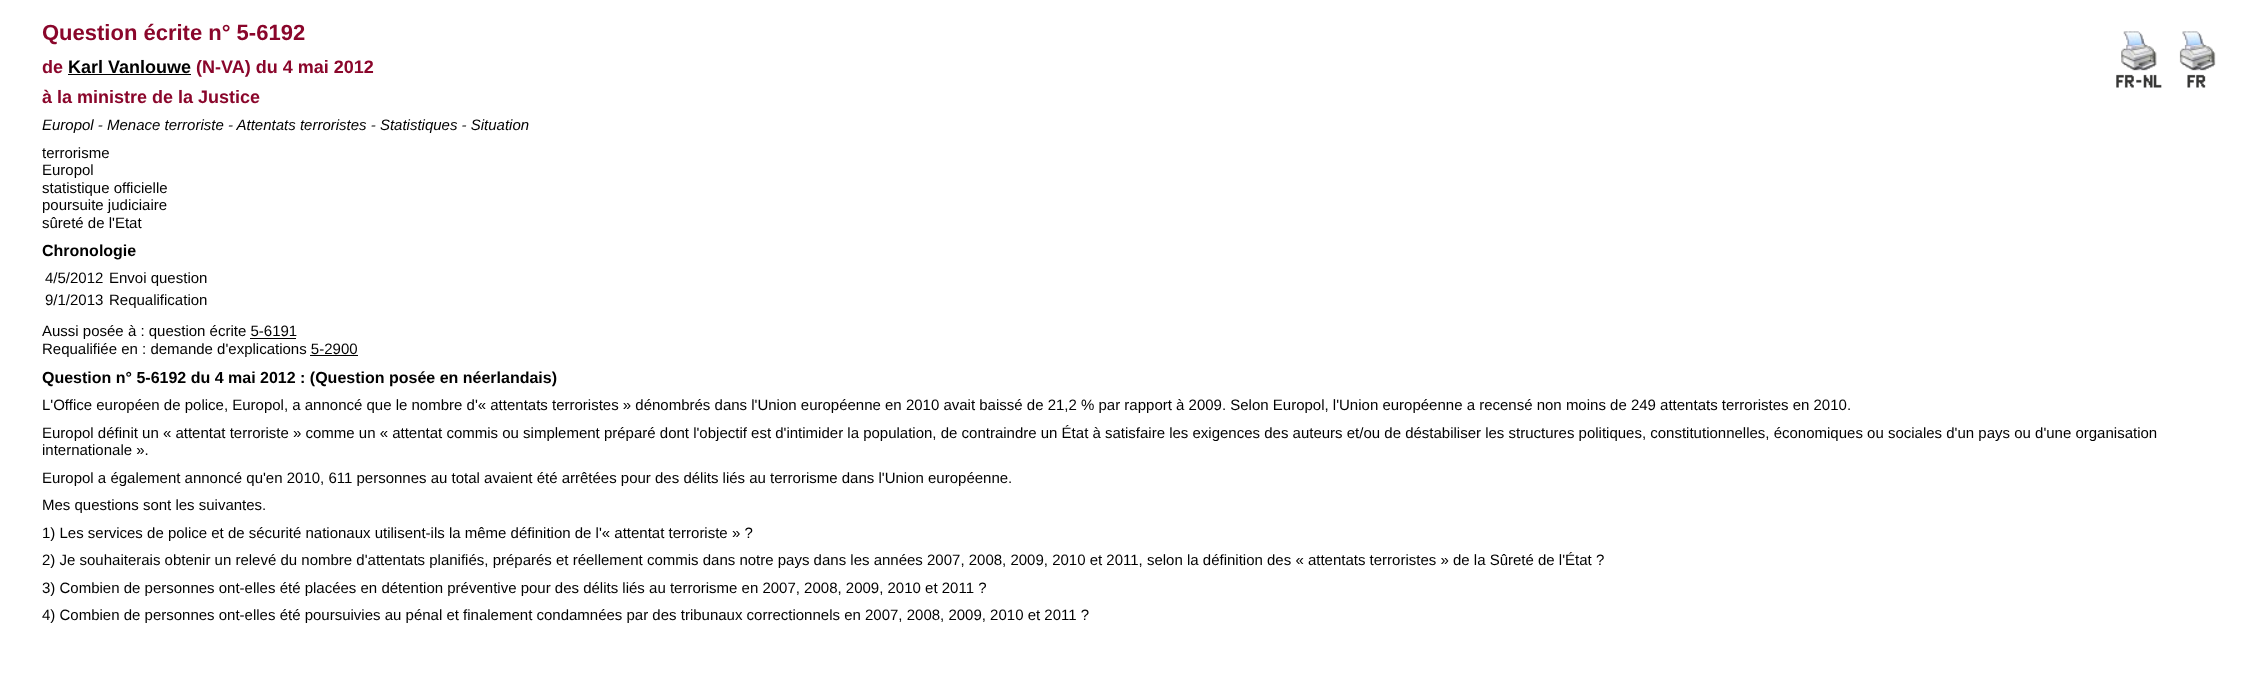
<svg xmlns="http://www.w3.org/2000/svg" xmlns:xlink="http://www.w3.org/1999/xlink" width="2268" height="678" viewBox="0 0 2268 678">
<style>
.cls-1{font:bold 22px Liberation Sans;fill:#8a062b}
.cls-2{font:bold 18px Liberation Sans;fill:#8a062b}
.cls-3{font:bold 18px Liberation Sans;fill:#000000}
.cls-4{font:italic 15px Liberation Sans;fill:#000000}
.cls-5{font:15px Liberation Sans;fill:#000000}
.cls-6{font:bold 16px Liberation Sans;fill:#000000}
</style>
<rect width="100%" height="100%" fill="#ffffff"/>
<image xlink:href="image0.png" x="2116" y="31" width="46" height="57"/>
<image xlink:href="image1.png" x="2179" y="31" width="37" height="57"/>
<rect fill="#000000" x="68" y="74" width="123" height="1"/>
<rect fill="#000000" x="250" y="338" width="46" height="1"/>
<rect fill="#000000" x="310" y="355" width="48" height="1"/>
<text class="cls-1" x="42" y="40">Question écrite n° 5-6192</text>
<text class="cls-2" x="42" y="73">de</text>
<text class="cls-3" x="68" y="73">Karl Vanlouwe</text>
<text class="cls-2" x="196" y="73">(N-VA) du 4 mai 2012</text>
<text class="cls-2" x="42" y="103">à la ministre de la Justice</text>
<text class="cls-4" x="42" y="130">Europol - Menace terroriste - Attentats terroristes - Statistiques - Situation</text>
<text class="cls-5"><tspan x="42" y="158">terrorisme</tspan><tspan x="42" y="175">Europol</tspan><tspan x="42" y="193">statistique officielle</tspan><tspan x="42" y="210">poursuite judiciaire</tspan><tspan x="42" y="228">sûreté de l'Etat</tspan></text>
<text class="cls-6" x="42" y="256">Chronologie</text>
<text class="cls-5" x="45" y="283">4/5/2012</text>
<text class="cls-5" x="109" y="283">Envoi question</text>
<text class="cls-5" x="45" y="305">9/1/2013</text>
<text class="cls-5" x="109" y="305">Requalification</text>
<text class="cls-5"><tspan x="42" y="336">Aussi posée à : question écrite 5-6191</tspan><tspan x="42" y="354">Requalifiée en : demande d'explications 5-2900</tspan></text>
<text class="cls-6" x="42" y="383">Question n° 5-6192 du 4 mai 2012 : (Question posée en néerlandais)</text>
<text class="cls-5"><tspan x="42" y="410">L'Office européen de police, Europol, a annoncé que le nombre d'« attentats terroristes » dénombrés dans l'Union européenne en 2010 avait baissé de 21,2 % par rapport à 2009. Selon Europol, l'Union européenne a recensé non moins de 249 attentats terroristes en 2010.</tspan><tspan x="42" y="438">Europol définit un « attentat terroriste » comme un « attentat commis ou simplement préparé dont l'objectif est d'intimider la population, de contraindre un État à satisfaire les exigences des auteurs et/ou de déstabiliser les structures politiques, constitutionnelles, économiques ou sociales d'un pays ou d'une organisation</tspan><tspan x="42" y="455">internationale ».</tspan><tspan x="42" y="483">Europol a également annoncé qu'en 2010, 611 personnes au total avaient été arrêtées pour des délits liés au terrorisme dans l'Union européenne.</tspan><tspan x="42" y="510">Mes questions sont les suivantes.</tspan><tspan x="42" y="538">1) Les services de police et de sécurité nationaux utilisent-ils la même définition de l'« attentat terroriste » ?</tspan><tspan x="42" y="565">2) Je souhaiterais obtenir un relevé du nombre d'attentats planifiés, préparés et réellement commis dans notre pays dans les années 2007, 2008, 2009, 2010 et 2011, selon la définition des « attentats terroristes » de la Sûreté de l'État ?</tspan><tspan x="42" y="593">3) Combien de personnes ont-elles été placées en détention préventive pour des délits liés au terrorisme en 2007, 2008, 2009, 2010 et 2011 ?</tspan><tspan x="42" y="620">4) Combien de personnes ont-elles été poursuivies au pénal et finalement condamnées par des tribunaux correctionnels en 2007, 2008, 2009, 2010 et 2011 ?</tspan></text>
</svg>
